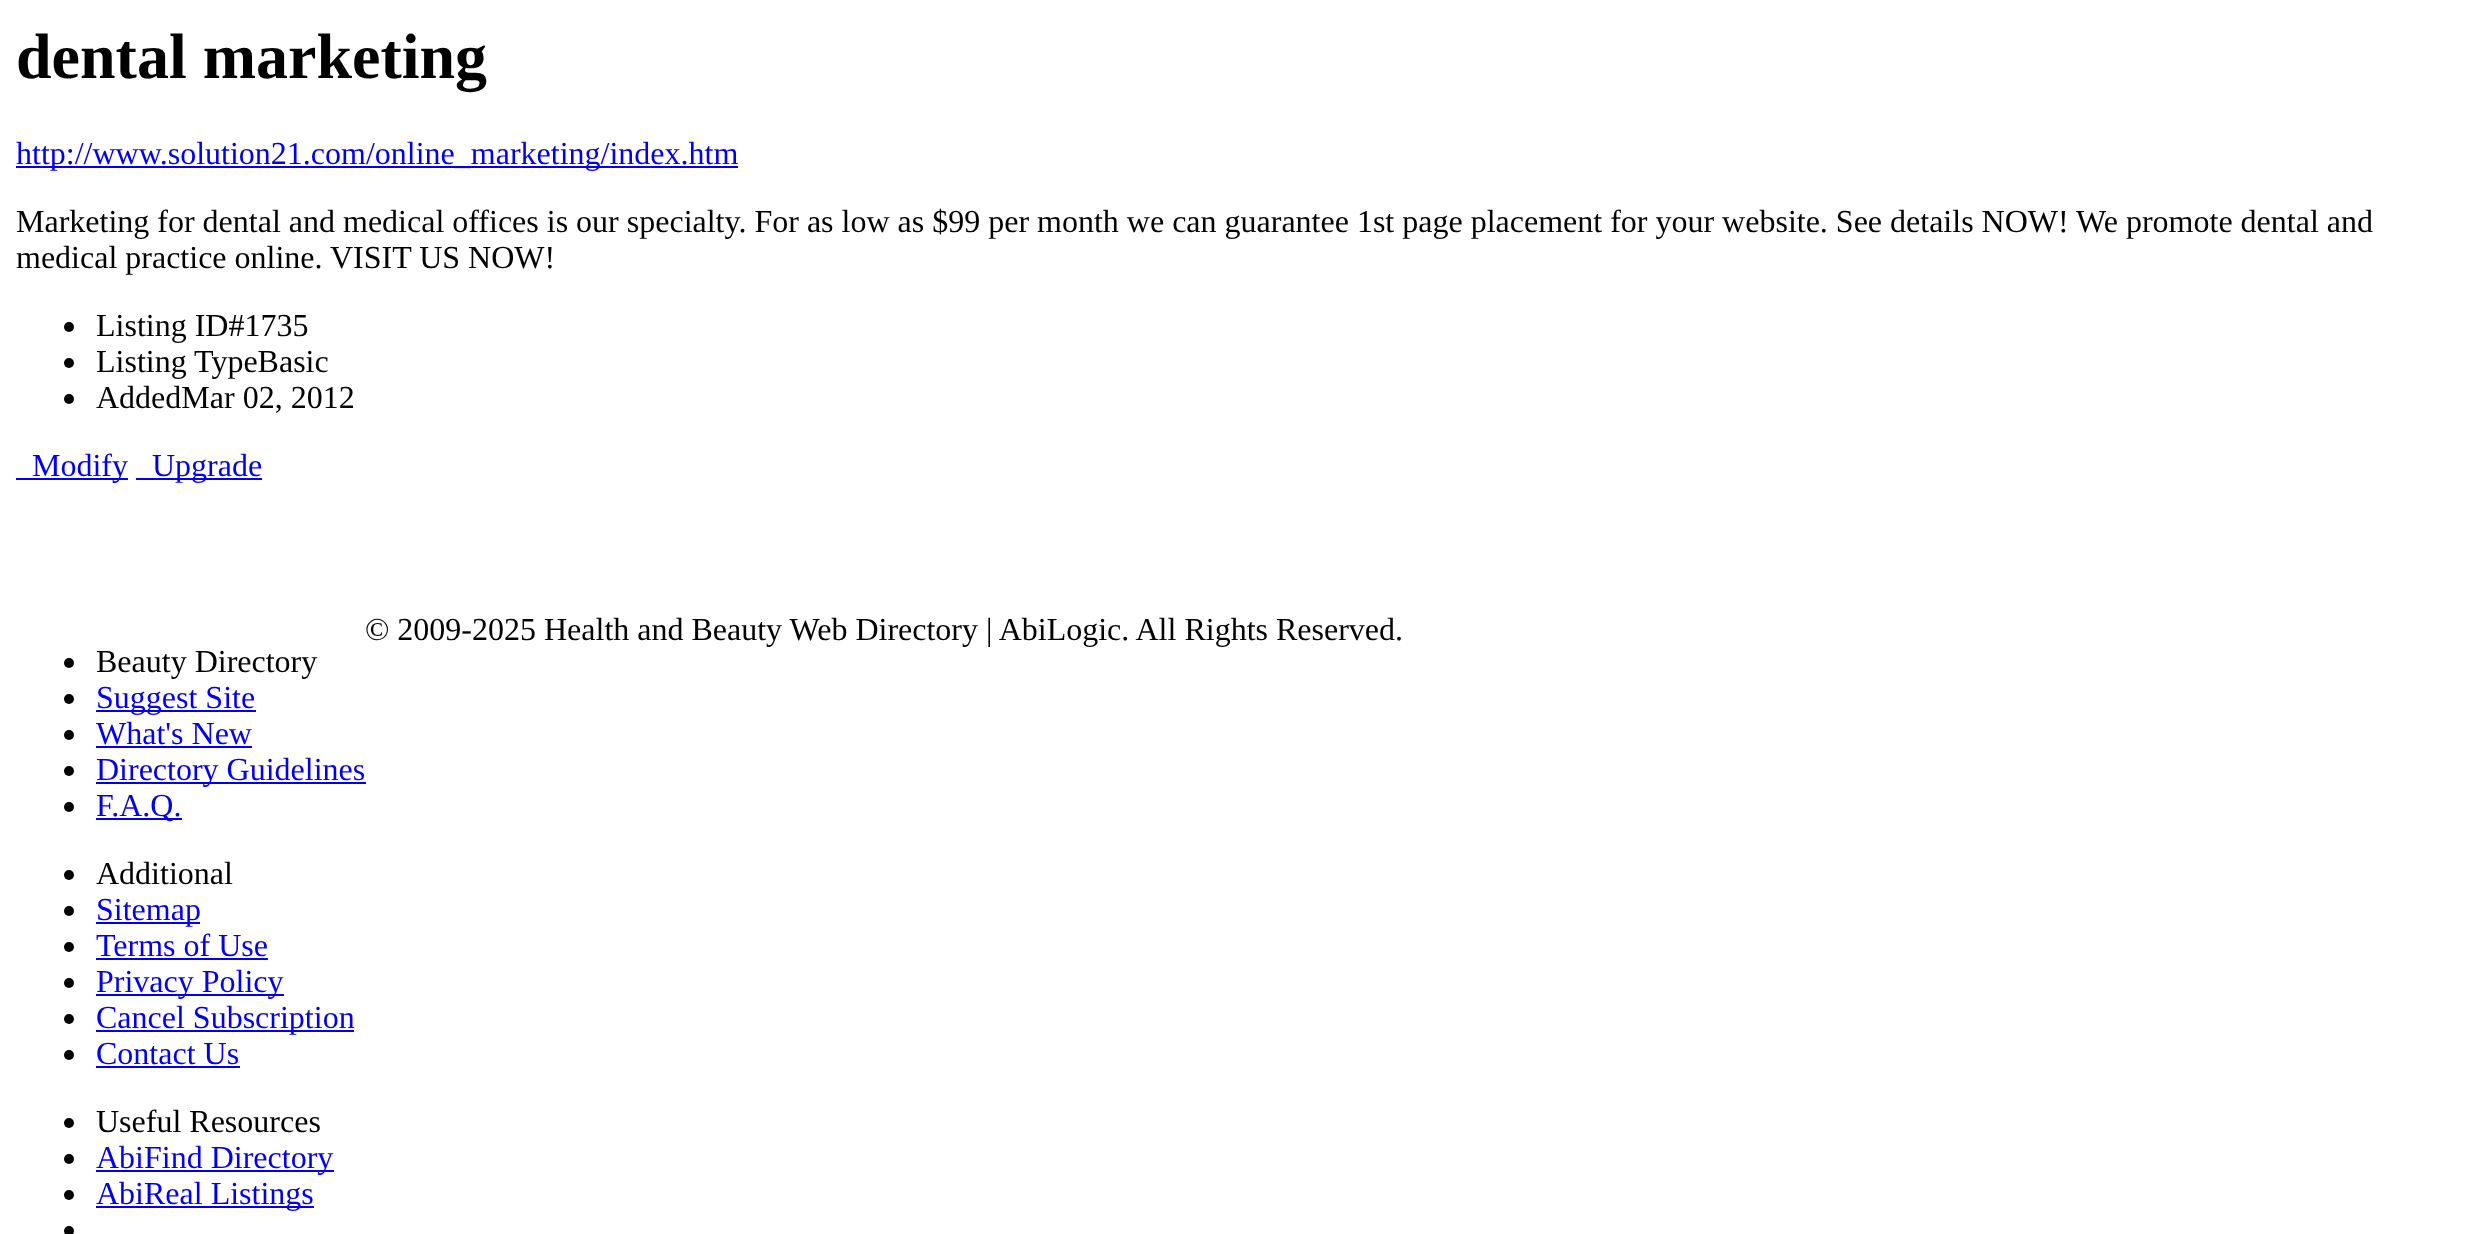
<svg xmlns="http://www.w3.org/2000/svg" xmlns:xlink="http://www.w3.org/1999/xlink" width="2468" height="1234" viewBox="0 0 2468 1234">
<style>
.cls-1{font:bold 64px Liberation Serif;fill:#000000}
.cls-2{font:32px Liberation Serif;fill:#0000ee}
.cls-3{font:32px Liberation Serif;fill:#000000}
</style>
<rect width="100%" height="100%" fill="#ffffff"/>
<rect fill="#0000ee" x="16" y="166" width="722" height="2"/>
<circle fill="#000000" cx="69" cy="327" r="5"/>
<circle fill="#000000" cx="69" cy="363" r="5"/>
<circle fill="#000000" cx="69" cy="399" r="5"/>
<rect fill="#0000ee" x="16" y="478" width="112" height="2"/>
<rect fill="#0000ee" x="136" y="478" width="126" height="2"/>
<circle fill="#000000" cx="69" cy="663" r="5"/>
<circle fill="#000000" cx="69" cy="699" r="5"/>
<rect fill="#0000ee" x="96" y="710" width="160" height="2"/>
<circle fill="#000000" cx="69" cy="735" r="5"/>
<rect fill="#0000ee" x="96" y="746" width="156" height="2"/>
<circle fill="#000000" cx="69" cy="771" r="5"/>
<rect fill="#0000ee" x="96" y="782" width="270" height="2"/>
<circle fill="#000000" cx="69" cy="807" r="5"/>
<rect fill="#0000ee" x="96" y="818" width="86" height="2"/>
<circle fill="#000000" cx="69" cy="875" r="5"/>
<circle fill="#000000" cx="69" cy="911" r="5"/>
<rect fill="#0000ee" x="96" y="922" width="104" height="2"/>
<circle fill="#000000" cx="69" cy="947" r="5"/>
<rect fill="#0000ee" x="96" y="958" width="172" height="2"/>
<circle fill="#000000" cx="69" cy="983" r="5"/>
<rect fill="#0000ee" x="96" y="994" width="188" height="2"/>
<circle fill="#000000" cx="69" cy="1019" r="5"/>
<rect fill="#0000ee" x="96" y="1030" width="258" height="2"/>
<circle fill="#000000" cx="69" cy="1055" r="5"/>
<rect fill="#0000ee" x="96" y="1066" width="144" height="2"/>
<circle fill="#000000" cx="69" cy="1123" r="5"/>
<circle fill="#000000" cx="69" cy="1159" r="5"/>
<rect fill="#0000ee" x="96" y="1170" width="238" height="2"/>
<circle fill="#000000" cx="69" cy="1195" r="5"/>
<rect fill="#0000ee" x="96" y="1206" width="218" height="2"/>
<circle fill="#000000" cx="69" cy="1231" r="5"/>
<text class="cls-1" x="16" y="78">dental marketing</text>
<text class="cls-2" x="16" y="164">http://www.solution21.com/online_marketing/index.htm</text>
<text class="cls-3"><tspan x="16" y="232">Marketing for dental and medical offices is our specialty. For as low as $99 per month we can guarantee 1st page placement for your website. See details NOW! We promote dental and</tspan><tspan x="16" y="268">medical practice online. VISIT US NOW!</tspan></text>
<text class="cls-3"><tspan x="96" y="336">Listing ID#1735</tspan><tspan x="96" y="372">Listing TypeBasic</tspan><tspan x="96" y="408">AddedMar 02, 2012</tspan></text>
<text class="cls-2" x="32" y="476">Modify</text>
<text class="cls-2" x="152" y="476">Upgrade</text>
<text class="cls-3" x="365" y="640">© 2009-2025 Health and Beauty Web Directory | AbiLogic. All Rights Reserved.</text>
<text class="cls-3" x="96" y="672">Beauty Directory</text>
<text class="cls-2"><tspan x="96" y="708">Suggest Site</tspan><tspan x="96" y="744">What's New</tspan><tspan x="96" y="780">Directory Guidelines</tspan><tspan x="96" y="816">F.A.Q.</tspan></text>
<text class="cls-3" x="96" y="884">Additional</text>
<text class="cls-2"><tspan x="96" y="920">Sitemap</tspan><tspan x="96" y="956">Terms of Use</tspan><tspan x="96" y="992">Privacy Policy</tspan><tspan x="96" y="1028">Cancel Subscription</tspan><tspan x="96" y="1064">Contact Us</tspan></text>
<text class="cls-3" x="96" y="1132">Useful Resources</text>
<text class="cls-2"><tspan x="96" y="1168">AbiFind Directory</tspan><tspan x="96" y="1204">AbiReal Listings</tspan></text>
</svg>
